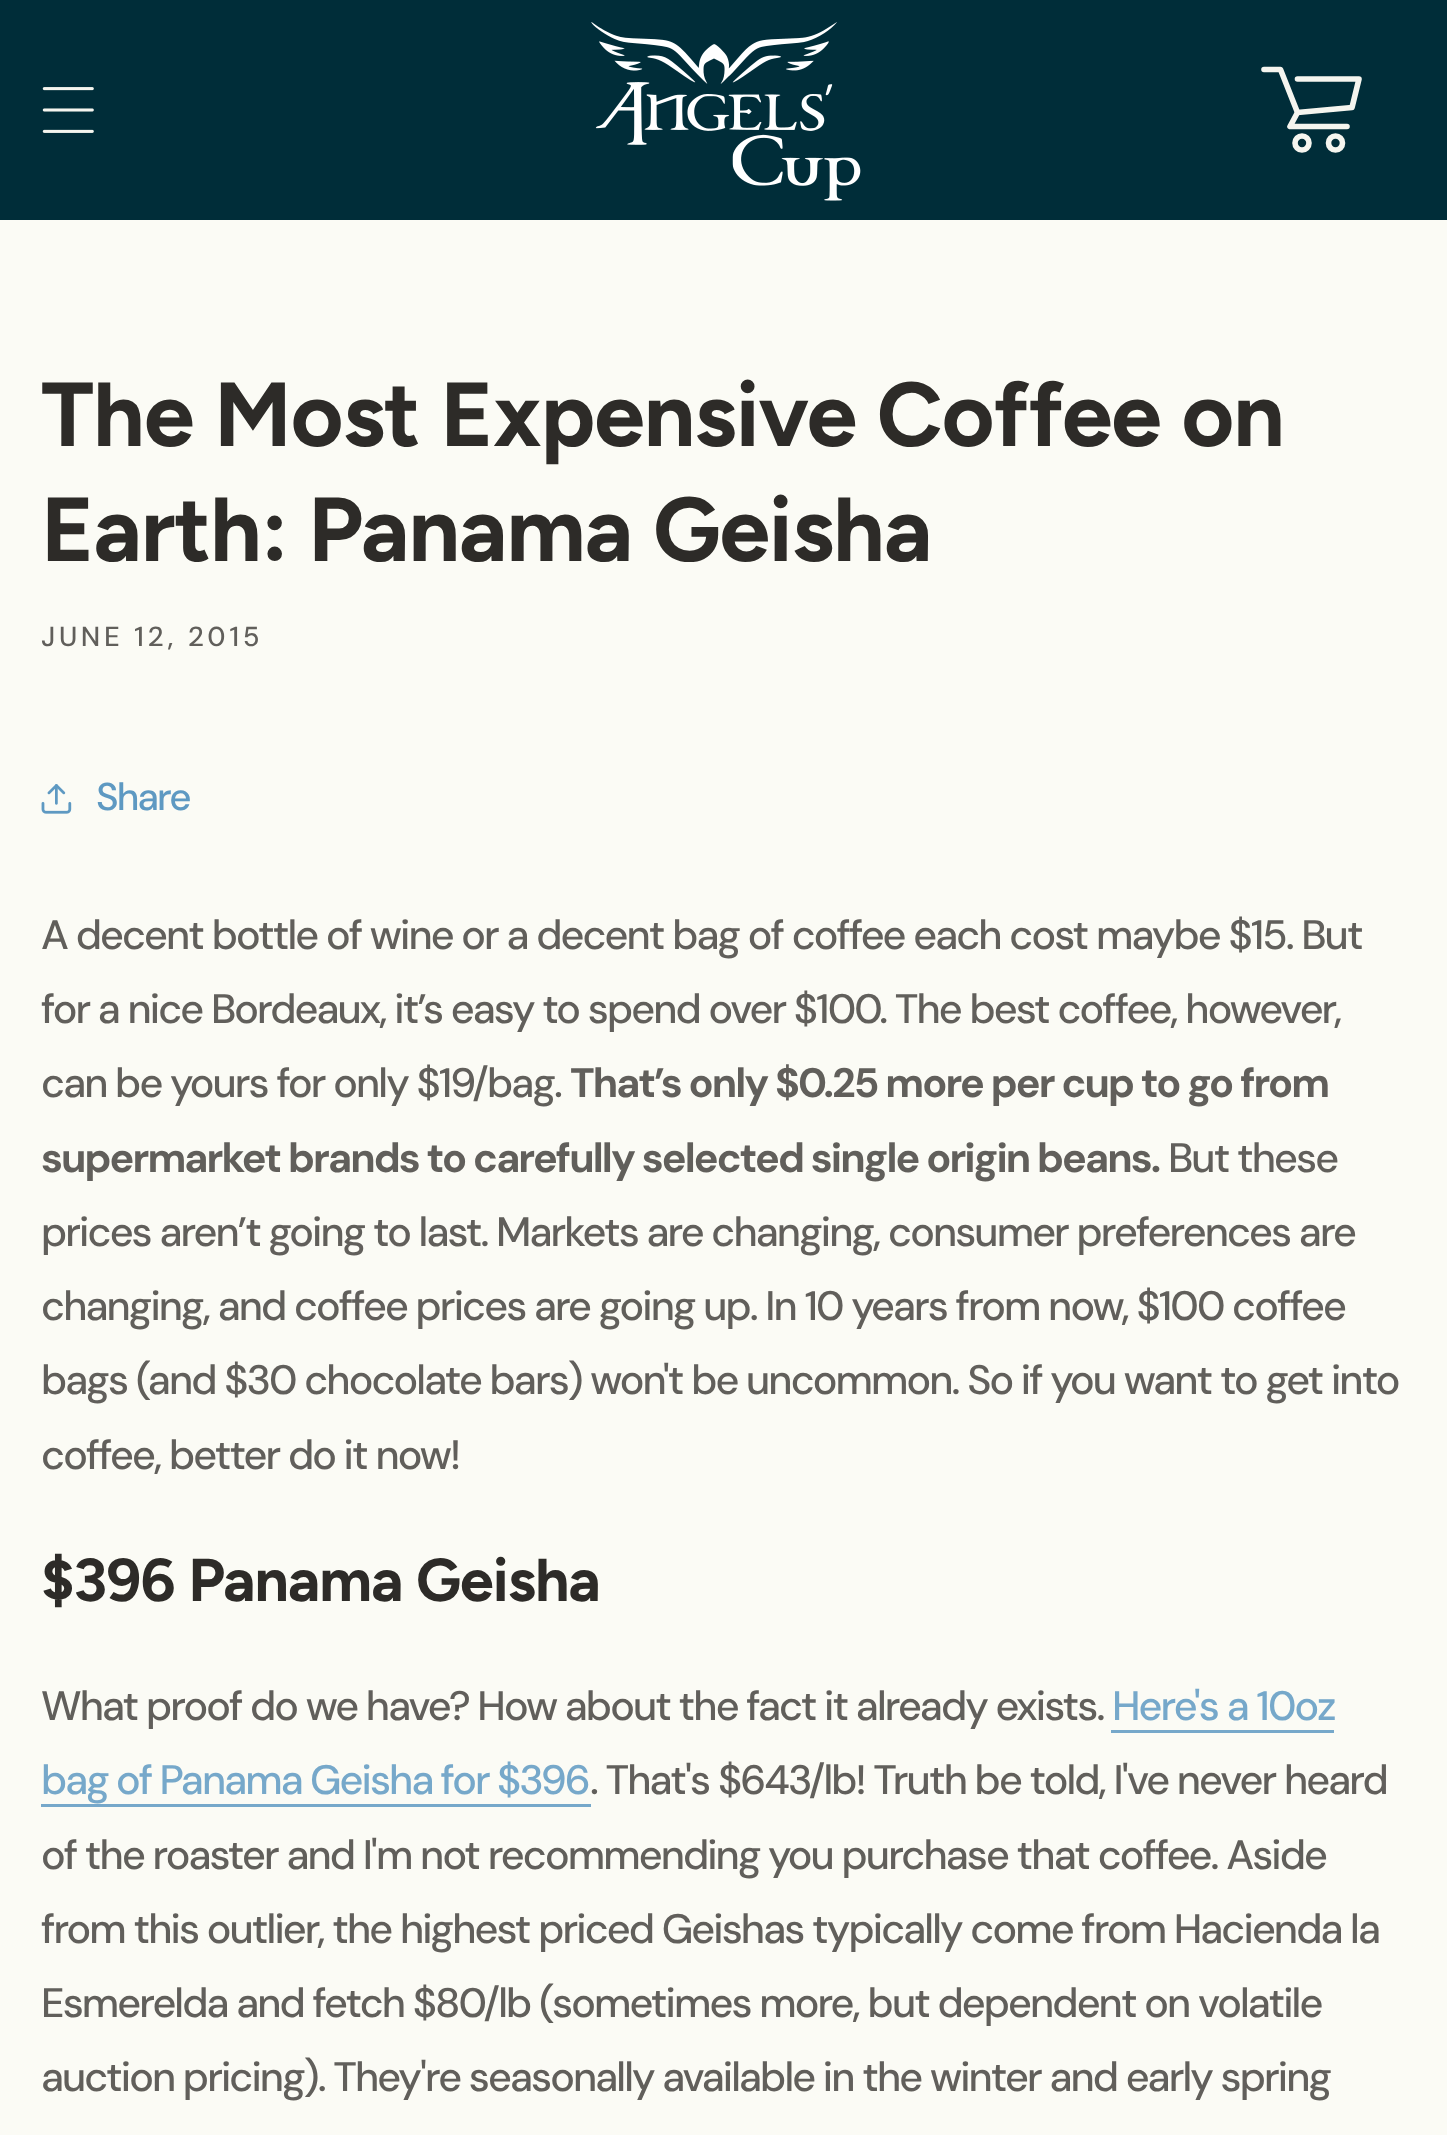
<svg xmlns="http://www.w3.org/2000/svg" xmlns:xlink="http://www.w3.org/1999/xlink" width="1447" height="2135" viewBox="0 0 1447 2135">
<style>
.cls-1{font:bold 90.75px Figtree;letter-spacing:-0.9px;fill:#2d2b28}
.cls-2{font:500 27.5px DM Sans;letter-spacing:3.6px;fill:#615f5b}
.cls-3{font:500 38.5px 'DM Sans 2';letter-spacing:-1.92px;fill:#5e99c2}
.cls-4{font:500 41.25px 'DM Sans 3';letter-spacing:-1.92px;fill:#615f5b}
.cls-5{font:bold 41.25px DM Sans;letter-spacing:-1.92px;fill:#615f5b}
.cls-6{font:bold 60.5px Figtree;letter-spacing:-0.9px;fill:#2d2b28}
.cls-7{font:500 41.25px 'DM Sans 3';letter-spacing:-1.92px;fill:#76a8ca}
</style>
<rect width="100%" height="100%" fill="#fbfbf5"/>
<rect fill="#002d39" x="0" y="0" width="1447" height="220"/>
<image xlink:href="image0.png" x="42" y="87" width="52" height="46"/>
<image xlink:href="image1.png" x="591" y="22" width="270" height="179"/>
<circle fill="none" stroke="#f5f5ef" stroke-width="5.6" cx="1335.5" cy="143" r="7"/>
<circle fill="none" stroke="#f5f5ef" stroke-width="5.6" cx="1302" cy="143" r="7"/>
<path fill="none" stroke="#f5f5ef" stroke-width="5.6" stroke-linecap="round" stroke-linejoin="round" d="M1297.5 79H1359L1352 107.5L1297.5 112.5"/>
<path fill="none" stroke="#f5f5ef" stroke-width="5.6" stroke-linecap="round" stroke-linejoin="round" d="M1264 69.5H1280.5L1297.5 112.5L1290 126.5H1347"/>
<image xlink:href="image2.png" x="41" y="784" width="31" height="30"/>
<rect fill="#76a8ca" x="1111" y="1730" width="223" height="3"/>
<rect fill="#76a8ca" x="41" y="1804" width="550" height="3"/>
<text class="cls-1"><tspan x="41" y="446">The Most Expensive Coffee on</tspan><tspan x="41" y="561">Earth: Panama Geisha</tspan></text>
<text class="cls-2" x="41" y="646">JUNE 12, 2015</text>
<text class="cls-3" x="96" y="810">Share</text>
<text class="cls-4"><tspan x="41" y="949">A decent bottle of wine or a decent bag of coffee each cost maybe $15. But</tspan><tspan x="41" y="1023">for a nice Bordeaux, it’s easy to spend over $100. The best coffee, however,</tspan><tspan x="41" y="1097">can be yours for only $19/bag.</tspan></text>
<text class="cls-5" x="570" y="1097">That’s only $0.25 more per cup to go from</text>
<text class="cls-5" x="41" y="1172">supermarket brands to carefully selected single origin beans.</text>
<text class="cls-4" x="1168" y="1172">But these</text>
<text class="cls-4"><tspan x="41" y="1246">prices aren’t going to last. Markets are changing, consumer preferences are</tspan><tspan x="41" y="1320">changing, and coffee prices are going up. In 10 years from now, $100 coffee</tspan><tspan x="41" y="1394">bags (and $30 chocolate bars) won't be uncommon. So if you want to get into</tspan><tspan x="41" y="1469">coffee, better do it now!</tspan></text>
<text class="cls-6" x="41" y="1601">$396 Panama Geisha</text>
<text class="cls-4" x="41" y="1720">What proof do we have? How about the fact it already exists.</text>
<text class="cls-7" x="1112" y="1720">Here's a 10oz</text>
<text class="cls-7" x="41" y="1794" word-spacing="-0.5">bag of Panama Geisha for $396</text>
<text class="cls-4" x="590" y="1794">. That's $643/lb! Truth be told, I've never heard</text>
<text class="cls-4"><tspan x="41" y="1869">of the roaster and I'm not recommending you purchase that coffee. Aside</tspan><tspan x="41" y="1943">from this outlier, the highest priced Geishas typically come from Hacienda la</tspan><tspan x="41" y="2017">Esmerelda and fetch $80/lb (sometimes more, but dependent on volatile</tspan><tspan x="41" y="2091">auction pricing). They're seasonally available in the winter and early spring</tspan></text>
</svg>
